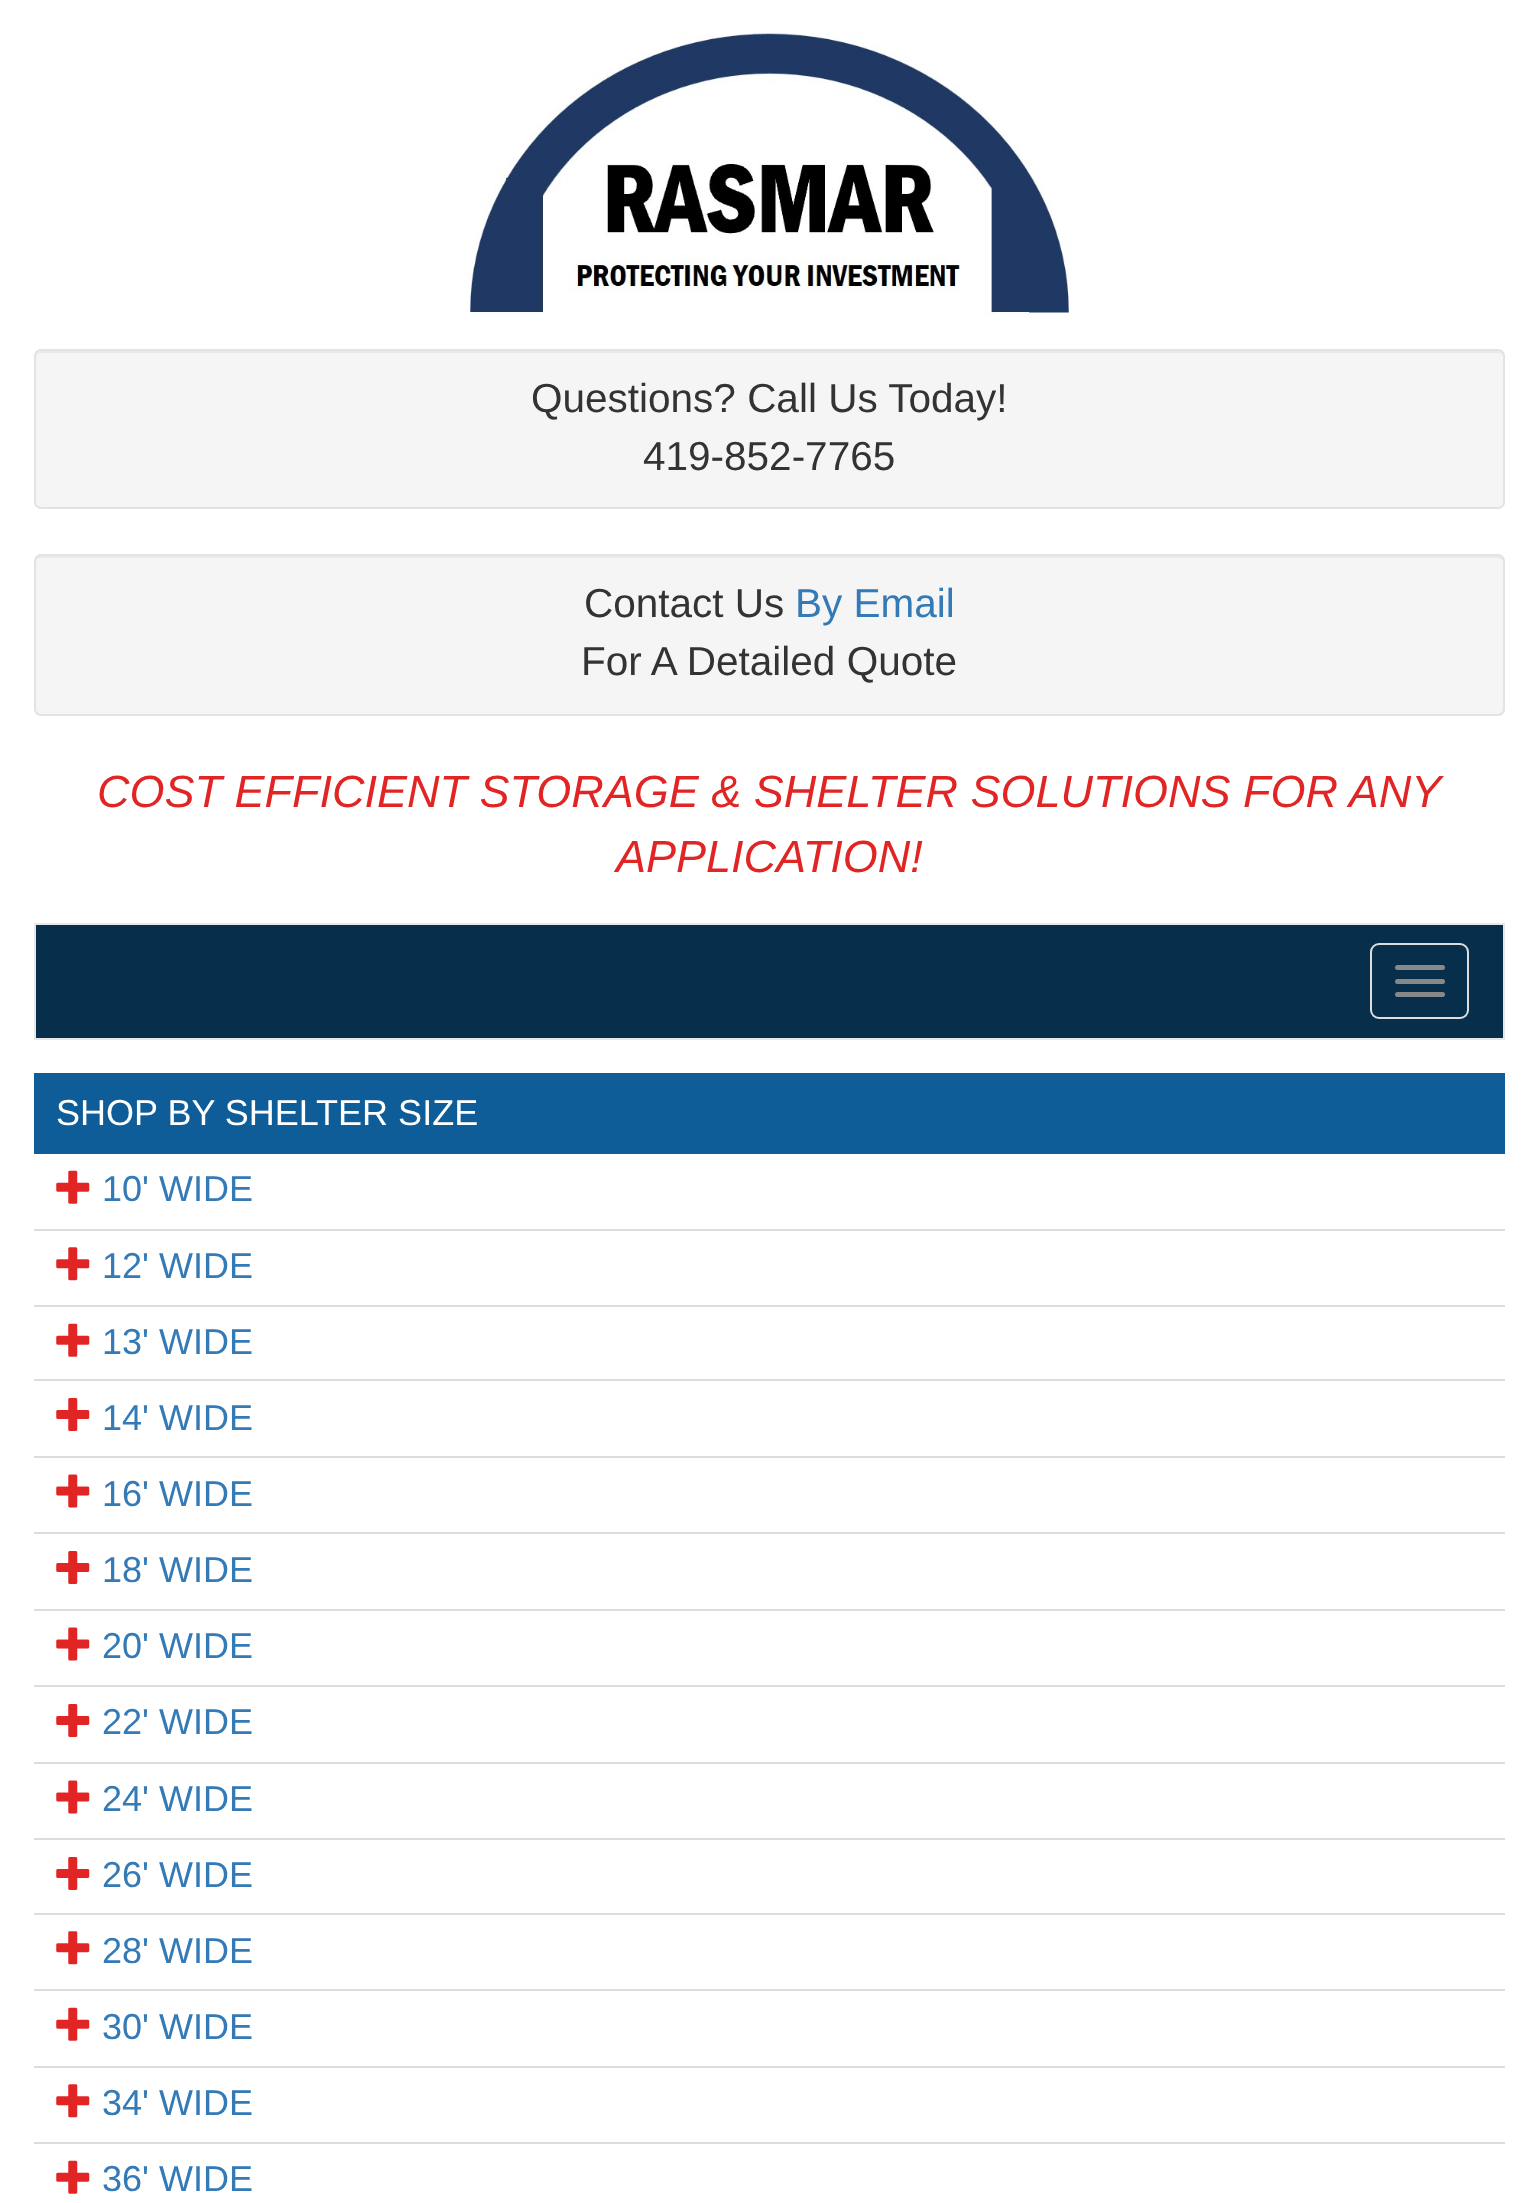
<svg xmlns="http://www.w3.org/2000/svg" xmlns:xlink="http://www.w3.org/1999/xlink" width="1539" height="2203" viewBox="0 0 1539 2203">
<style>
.cls-1{font:40.5px Liberation Sans;fill:#333333}
.cls-2{font:40.5px Liberation Sans;fill:#337ab7}
.cls-3{font:italic 45px Liberation Sans;fill:#e12424}
.cls-4{font:36px Liberation Sans;fill:#ffffff}
.cls-5{font:36px Liberation Sans;fill:#337ab7}
</style>
<rect width="100%" height="100%" fill="#ffffff"/>
<image xlink:href="image0.png" x="470" y="33" width="599" height="282"/>
<rect fill="#f5f5f5" x="34" y="349" width="1471" height="160" rx="7"/>
<path fill="#e9e9e9" d="M40 353H1498C1501 353 1503 355 1503 358C1503 355 1502 351 1498 351H41C37 351 36 355 36 358C36 355 38 353 40 353Z"/>
<rect fill="none" stroke="#e3e3e3" stroke-width="2" x="35" y="350" width="1469" height="158" rx="6"/>
<rect fill="#f5f5f5" x="34" y="554" width="1471" height="162" rx="7"/>
<path fill="#e9e9e9" d="M40 558H1498C1501 558 1503 560 1503 562V561C1503 558 1501 556 1498 556H41C38 556 36 558 36 561V562C36 560 38 558 40 558Z"/>
<rect fill="none" stroke="#e3e3e3" stroke-width="2" x="35" y="555" width="1469" height="160" rx="6"/>
<rect fill="#072e4b" stroke="#e7e7e7" stroke-width="2" x="35" y="924" width="1469" height="115"/>
<rect fill="none" stroke="#dddddd" stroke-width="2" x="1371" y="944" width="97" height="74" rx="8"/>
<rect fill="#888888" x="1395" y="965" width="50" height="5" rx="2.5"/>
<rect fill="#888888" x="1395" y="979" width="50" height="5" rx="2.5"/>
<rect fill="#888888" x="1395" y="992" width="50" height="5" rx="2.5"/>
<rect fill="#0e5c98" x="34" y="1073" width="1471" height="81"/>
<rect fill="#dddddd" x="34" y="1229" width="1471" height="2"/>
<image xlink:href="image1.png" x="56" y="1170" width="34" height="34"/>
<rect fill="#dddddd" x="34" y="1305" width="1471" height="2"/>
<image xlink:href="image2.png" x="56" y="1247" width="34" height="34"/>
<rect fill="#dddddd" x="34" y="1379" width="1471" height="2"/>
<image xlink:href="image1.png" x="56" y="1323" width="34" height="34"/>
<rect fill="#dddddd" x="34" y="1456" width="1471" height="2"/>
<image xlink:href="image3.png" x="56" y="1398" width="34" height="33"/>
<rect fill="#dddddd" x="34" y="1532" width="1471" height="2"/>
<image xlink:href="image4.png" x="56" y="1474" width="34" height="34"/>
<rect fill="#dddddd" x="34" y="1609" width="1471" height="2"/>
<image xlink:href="image3.png" x="56" y="1551" width="34" height="33"/>
<rect fill="#dddddd" x="34" y="1685" width="1471" height="2"/>
<image xlink:href="image4.png" x="56" y="1627" width="34" height="34"/>
<rect fill="#dddddd" x="34" y="1762" width="1471" height="2"/>
<image xlink:href="image3.png" x="56" y="1704" width="34" height="33"/>
<rect fill="#dddddd" x="34" y="1838" width="1471" height="2"/>
<image xlink:href="image4.png" x="56" y="1780" width="34" height="34"/>
<rect fill="#dddddd" x="34" y="1913" width="1471" height="2"/>
<image xlink:href="image3.png" x="56" y="1857" width="34" height="33"/>
<rect fill="#dddddd" x="34" y="1989" width="1471" height="2"/>
<image xlink:href="image2.png" x="56" y="1931" width="34" height="34"/>
<rect fill="#dddddd" x="34" y="2066" width="1471" height="2"/>
<image xlink:href="image1.png" x="56" y="2007" width="34" height="34"/>
<rect fill="#dddddd" x="34" y="2142" width="1471" height="2"/>
<image xlink:href="image2.png" x="56" y="2084" width="34" height="34"/>
<image xlink:href="image1.png" x="56" y="2160" width="34" height="34"/>
<text class="cls-1" x="531" y="412">Questions? Call Us Today!</text>
<text class="cls-1" x="643" y="470">419-852-7765</text>
<text class="cls-1" x="584" y="617">Contact Us</text>
<text class="cls-2" x="795" y="617">By Email</text>
<text class="cls-1" x="581" y="675">For A Detailed Quote</text>
<text class="cls-3" x="97" y="807">COST EFFICIENT STORAGE &amp; SHELTER SOLUTIONS FOR ANY</text>
<text class="cls-3" x="616" y="872">APPLICATION!</text>
<text class="cls-4" x="56" y="1125">SHOP BY SHELTER SIZE</text>
<text class="cls-5" x="102" y="1201">10' WIDE</text>
<text class="cls-5" x="102" y="1278">12' WIDE</text>
<text class="cls-5" x="102" y="1354">13' WIDE</text>
<text class="cls-5" x="102" y="1430">14' WIDE</text>
<text class="cls-5" x="102" y="1506">16' WIDE</text>
<text class="cls-5" x="102" y="1582">18' WIDE</text>
<text class="cls-5" x="102" y="1658">20' WIDE</text>
<text class="cls-5" x="102" y="1734">22' WIDE</text>
<text class="cls-5" x="102" y="1811">24' WIDE</text>
<text class="cls-5" x="102" y="1887">26' WIDE</text>
<text class="cls-5" x="102" y="1963">28' WIDE</text>
<text class="cls-5" x="102" y="2039">30' WIDE</text>
<text class="cls-5" x="102" y="2115">34' WIDE</text>
<text class="cls-5" x="102" y="2191">36' WIDE</text>
</svg>
